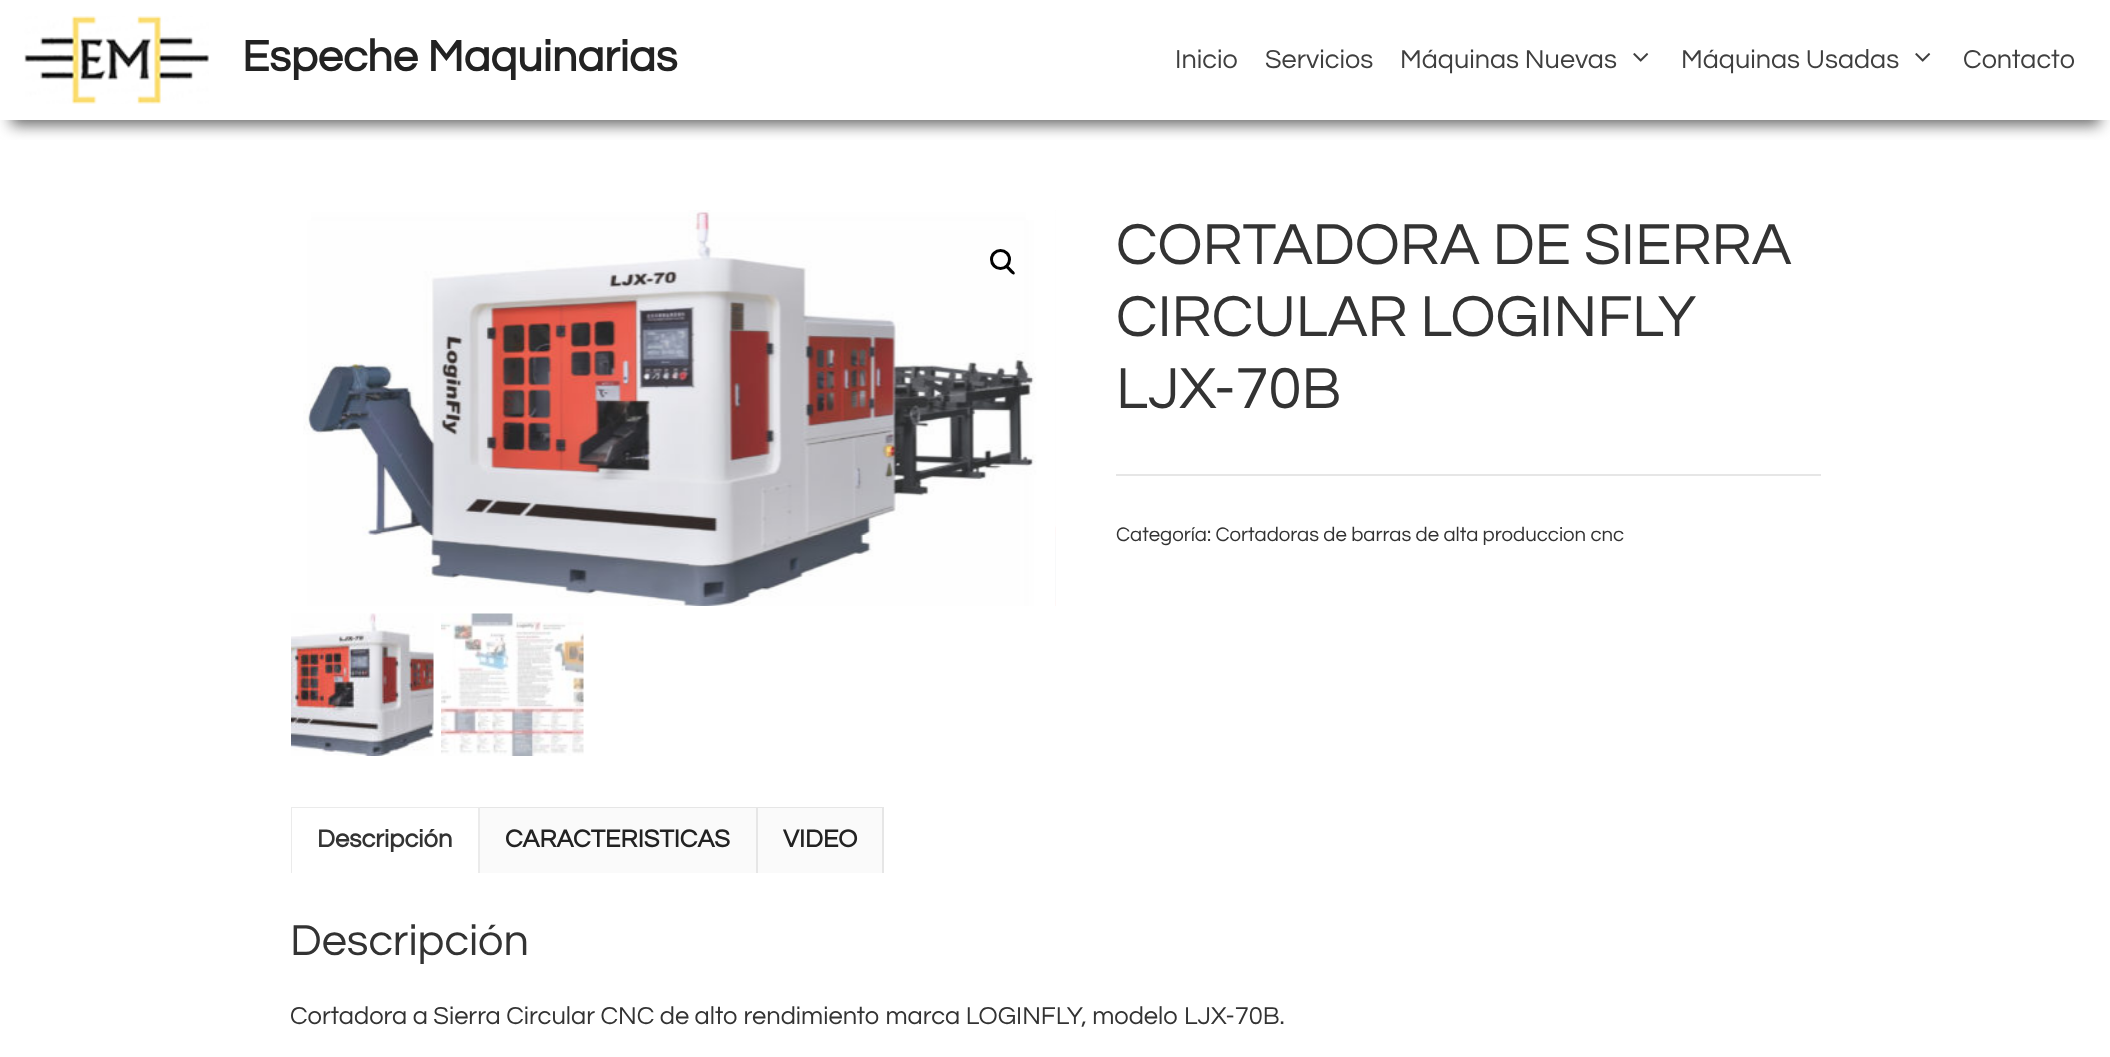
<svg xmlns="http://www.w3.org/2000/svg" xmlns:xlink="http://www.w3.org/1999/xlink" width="2110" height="1057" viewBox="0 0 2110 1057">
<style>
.cls-1{font:bold 45px Questrial;fill:#222222}
.cls-2{font:27px Questrial;fill:#3f3f3f}
.cls-3{font:60px Questrial;fill:#333333}
.cls-4{font:20.4px Questrial;fill:#333333}
.cls-5{font:bold 25.5px Questrial;fill:#333333}
.cls-6{font:bold 25.5px Questrial;fill:#222222}
.cls-7{font:45px Questrial;fill:#333333}
.cls-8{font:25.5px Questrial;fill:#333333}
</style>
<defs>
<clipPath id="clip1"><rect x="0" y="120" width="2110" height="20"/></clipPath>
</defs>
<rect width="100%" height="100%" fill="#ffffff"/>
<g clip-path="url(#clip1)">
<rect fill="#666666" filter="blur(7.5px)" x="11" y="26" width="2089" height="99"/>
</g>
<image xlink:href="image0.png" x="24" y="16" width="185" height="88"/>
<image xlink:href="image1.png" x="1633" y="53" width="16" height="9"/>
<image xlink:href="image1.png" x="1915" y="53" width="16" height="9"/>
<image xlink:href="image3.png" x="1055" y="210" width="1" height="396"/>
<image xlink:href="image2.png" x="303" y="210" width="753" height="396"/>
<circle fill="none" stroke="#000000" stroke-width="3" cx="1000.5" cy="259.5" r="9"/>
<path fill="#000000" d="M1006 266C1007.5 264 1010.5 268 1011.5 269C1012 270 1016 272.5 1014.5 274C1013 276 1010 272 1009 271C1008.5 270 1004.5 267.5 1006 266Z"/>
<image xlink:href="image4.png" x="291" y="613" width="143" height="143"/>
<image xlink:href="image5.png" x="441" y="613" width="143" height="143"/>
<rect fill="#e6e6e6" x="1116" y="474" width="705" height="2"/>
<path fill="#ebebeb" d="M291 807H480L478 808H292Z"/>
<path fill="#000000" fill-opacity="0.08" d="M480 807V873H478V808Z"/>
<path fill="#000000" fill-opacity="0.08" d="M291 873V807L292 808V873Z"/>
<rect fill="#fafafa" x="480" y="807" width="404" height="66"/>
<path fill="#e6e6e6" d="M480 807H758L756 808H480Z"/>
<path fill="#000000" fill-opacity="0.08" d="M758 807V873H756V808Z"/>
<path fill="#e6e6e6" d="M758 807H884L882 808H758Z"/>
<path fill="#000000" fill-opacity="0.08" d="M884 807V873H882V808Z"/>
<text class="cls-1" x="242" y="71">Espeche Maquinarias</text>
<text class="cls-2" x="1175" y="68">Inicio</text>
<text class="cls-2" x="1265" y="68">Servicios</text>
<text class="cls-2" x="1400" y="68">Máquinas Nuevas</text>
<text class="cls-2" x="1681" y="68">Máquinas Usadas</text>
<text class="cls-2" x="1963" y="68">Contacto</text>
<text class="cls-3"><tspan x="1116" y="264">CORTADORA DE SIERRA</tspan><tspan x="1116" y="336">CIRCULAR LOGINFLY</tspan><tspan x="1116" y="408">LJX-70B</tspan></text>
<text class="cls-4" x="1116" y="541">Categoría: Cortadoras de barras de alta produccion cnc</text>
<text class="cls-5" x="317" y="847">Descripción</text>
<text class="cls-6" x="505" y="847">CARACTERISTICAS</text>
<text class="cls-6" x="783" y="847">VIDEO</text>
<text class="cls-7" x="290" y="955">Descripción</text>
<text class="cls-8" x="290" y="1024">Cortadora a Sierra Circular CNC de alto rendimiento marca LOGINFLY, modelo LJX-70B.</text>
</svg>
